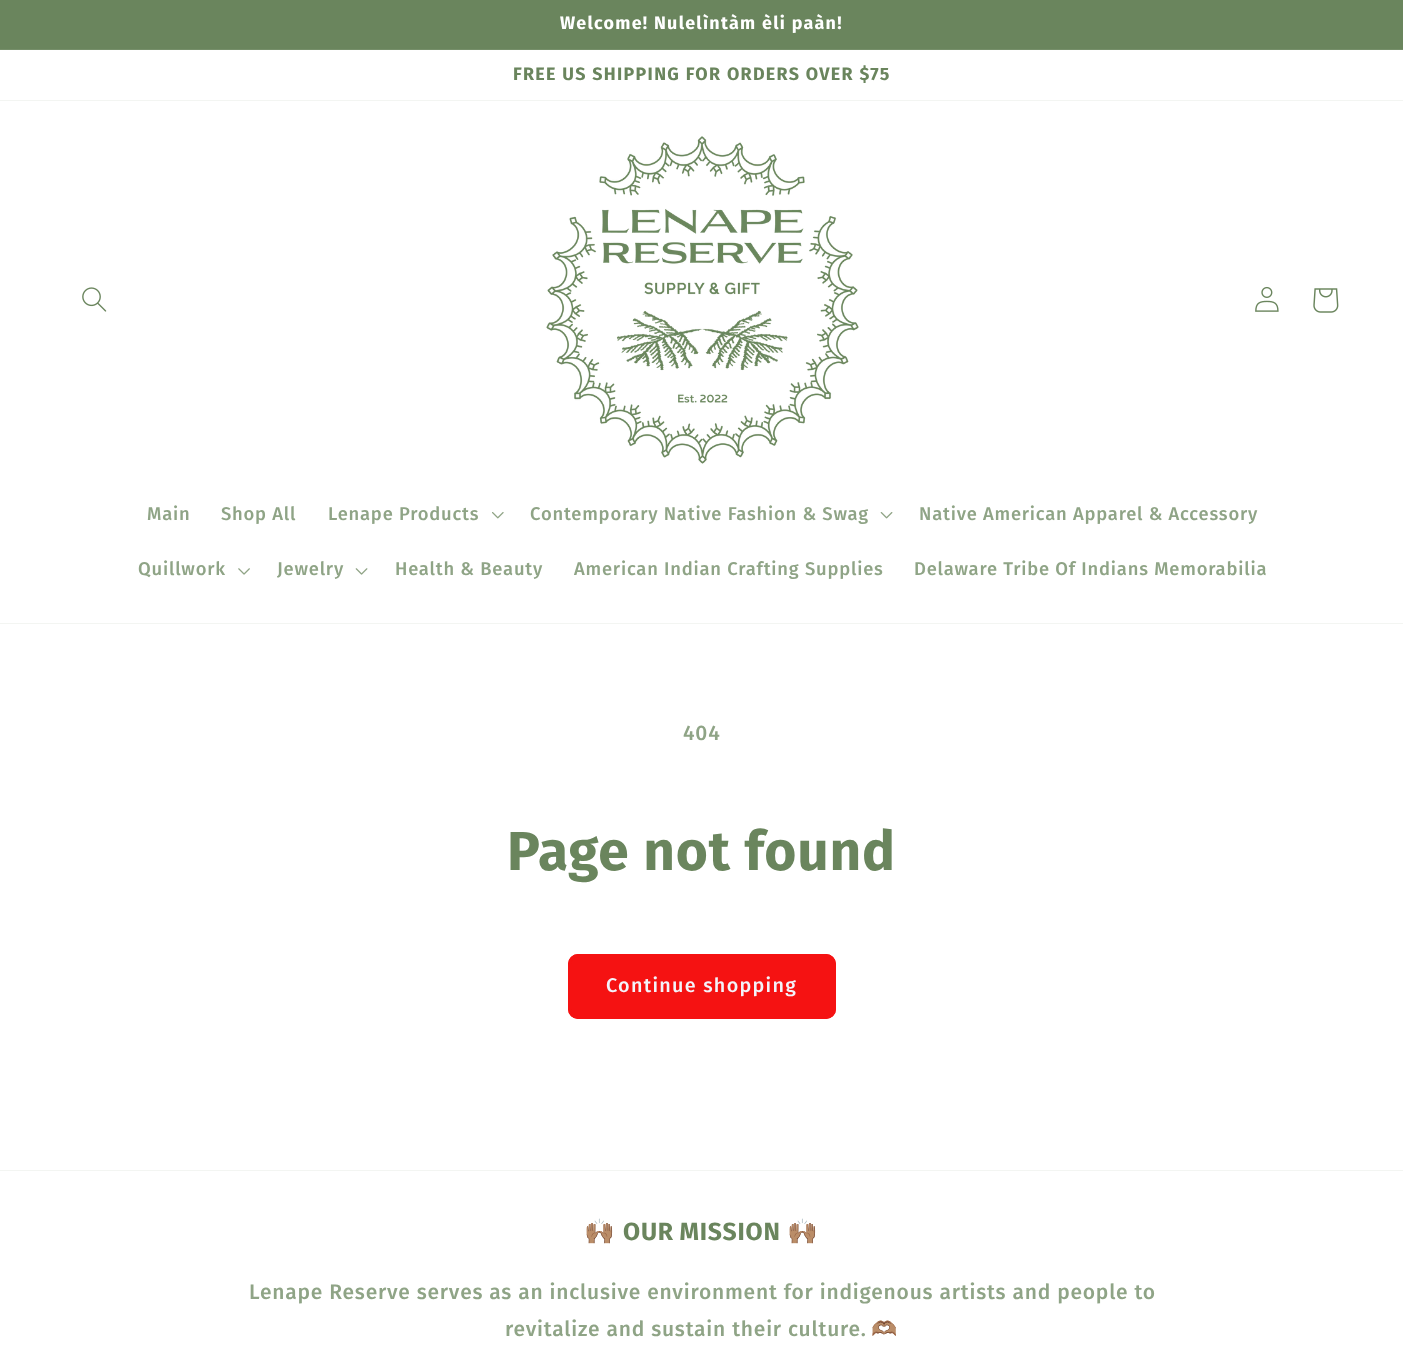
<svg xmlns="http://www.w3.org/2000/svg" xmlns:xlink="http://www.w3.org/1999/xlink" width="1403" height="1351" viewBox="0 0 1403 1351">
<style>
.cls-1{font:bold 17.9px Fira Sans;letter-spacing:1.3px;fill:#ffffff}
.cls-2{font:bold 17.9px Fira Sans;letter-spacing:1.3px;fill:#6a855d}
.cls-3{font:500 18.4px Fira Sans;letter-spacing:0.8px;fill:#8fa486}
.cls-4{font:500 21px Fira Sans;letter-spacing:0.8px;fill:#8fa486}
.cls-5{font:bold 55px Fira Sans;letter-spacing:0.8px;fill:#6a855d}
.cls-6{font:500 19.75px Fira Sans;letter-spacing:1.3px;fill:#f3f3fa}
.cls-7{font:bold 24.75px Noto Color Emoji;letter-spacing:0.8px;fill:#6a855d}
.cls-8{font:bold 24.75px Fira Sans;letter-spacing:0.8px;fill:#6a855d}
.cls-9{font:21px Noto Color Emoji;letter-spacing:0.8px;fill:#8fa486}
</style>
<rect width="100%" height="100%" fill="#ffffff"/>
<rect fill="#6a855d" x="0" y="0" width="1403" height="49"/>
<rect fill="#768f6a" x="0" y="49" width="1403" height="1"/>
<rect fill="#f3f5f2" x="0" y="100" width="1403" height="1"/>
<rect fill="#f3f5f2" x="0" y="623" width="1403" height="1"/>
<image xlink:href="image0.png" x="82" y="287" width="25" height="25"/>
<image xlink:href="image1.png" x="546" y="136" width="313" height="328"/>
<image xlink:href="image2.png" x="1255" y="286" width="24" height="26"/>
<image xlink:href="image3.png" x="1313" y="288" width="26" height="25"/>
<image xlink:href="image4.png" x="492" y="512" width="12" height="7"/>
<image xlink:href="image5.png" x="880" y="512" width="13" height="7"/>
<image xlink:href="image6.png" x="238" y="568" width="12" height="7"/>
<image xlink:href="image7.png" x="355" y="568" width="13" height="7"/>
<rect fill="#f51212" x="568" y="954" width="268" height="65" rx="10"/>
<rect fill="none" stroke="#f51212" stroke-width="3" x="569.5" y="955.5" width="265" height="62" rx="8.5"/>
<rect fill="#f3f5f2" x="0" y="1170" width="1403" height="1"/>
<text class="cls-1" x="560" y="29">Welcome! Nulelìntàm èli paàn!</text>
<text class="cls-2" x="513" y="80">FREE US SHIPPING FOR ORDERS OVER $75</text>
<text class="cls-3" x="147" y="520">Main</text>
<text class="cls-3" x="221" y="520">Shop All</text>
<text class="cls-3" x="328" y="520">Lenape Products</text>
<text class="cls-3" x="530" y="520">Contemporary Native Fashion &amp; Swag</text>
<text class="cls-3" x="919" y="520">Native American Apparel &amp; Accessory</text>
<text class="cls-3" x="138" y="575">Quillwork</text>
<text class="cls-3" x="277" y="575">Jewelry</text>
<text class="cls-3" x="395" y="575">Health &amp; Beauty</text>
<text class="cls-3" x="574" y="575">American Indian Crafting Supplies</text>
<text class="cls-3" x="914" y="575">Delaware Tribe Of Indians Memorabilia</text>
<text class="cls-4" x="683" y="740">404</text>
<text class="cls-5" x="507" y="870">Page not found</text>
<text class="cls-6" x="606" y="992">Continue shopping</text>
<text class="cls-7" x="584" y="1240">🙌🏽</text>
<text class="cls-8" x="623" y="1240" word-spacing="-1">OUR MISSION</text>
<text class="cls-7" x="787" y="1240">🙌🏽</text>
<text class="cls-4" x="249" y="1299">Lenape Reserve serves as an inclusive environment for indigenous artists and people to</text>
<text class="cls-4" x="505" y="1336">revitalize and sustain their culture.</text>
<text class="cls-9" x="871" y="1336">🫶🏽</text>
</svg>
